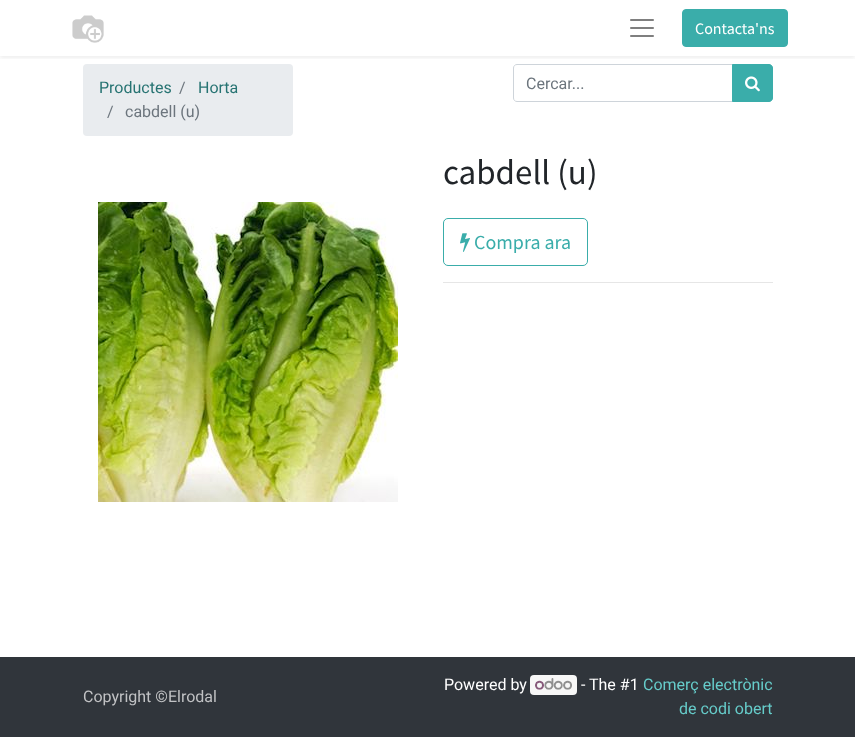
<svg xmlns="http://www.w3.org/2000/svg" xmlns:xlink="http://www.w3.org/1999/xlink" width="855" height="737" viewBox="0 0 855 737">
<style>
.cls-1{font:16px Source Sans Pro;fill:#ffffff}
.cls-2{font:16px Roboto;fill:#267372}
.cls-3{font:16px Roboto;fill:#6c757d}
.cls-4{font:35px Source Sans Pro;fill:#212529}
.cls-5{font:20px Source Sans Pro;fill:#3aadaa}
.cls-6{font:16px Roboto;fill:#c1c2c4}
.cls-7{font:16px Roboto;fill:#ffffff}
.cls-8{font:16px Roboto;fill:#66ccca}
</style>
<defs>
<clipPath id="clip1"><rect x="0" y="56" width="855" height="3"/></clipPath>
</defs>
<rect width="100%" height="100%" fill="#ffffff"/>
<rect fill="#e9ecef" x="83" y="64" width="210" height="72" rx="4"/>
<path fill="none" stroke="#ced4da" d="M517 64.5H732.5V101.5H517C515 101.5 513.5 100 513.5 98V68C513.5 66 515 64.5 517 64.5Z"/>
<path fill="#3aadaa" stroke="#3aadaa" d="M732.5 64.5H769C771 64.5 772.5 66 772.5 68V98C772.5 100 771 101.5 769 101.5H732.5Z"/>
<g clip-path="url(#clip1)">
<rect fill="#000000" fill-opacity="0.07" filter="blur(2px)" x="0" y="2" width="855" height="56"/>
</g>
<image xlink:href="image0.png" x="72" y="15" width="32" height="28"/>
<image xlink:href="image1.png" x="630" y="19" width="24" height="18"/>
<rect fill="#3aadaa" stroke="#3aadaa" x="682.5" y="9.5" width="105" height="37" rx="3.5"/>
<image xlink:href="image2.png" x="745" y="76" width="15" height="16"/>
<image xlink:href="image3.png" x="98" y="202" width="300" height="300"/>
<rect fill="none" stroke="#3aadaa" x="443.5" y="218.5" width="144" height="47" rx="4.5"/>
<image xlink:href="image4.png" x="460" y="233" width="10" height="19"/>
<rect fill="#e6e6e6" x="443" y="282" width="330" height="1"/>
<rect fill="#30353b" x="0" y="657" width="855" height="80"/>
<rect fill="#f7f7f7" x="530" y="675" width="47" height="20" rx="4"/>
<image xlink:href="image5.png" x="535" y="678" width="37" height="12"/>
<text class="cls-1" x="695" y="34">Contacta'ns</text>
<text class="cls-2" x="99" y="93">Productes</text>
<text class="cls-3" x="179" y="93">/</text>
<text class="cls-2" x="198" y="93">Horta</text>
<text class="cls-3" x="107" y="117">/</text>
<text class="cls-3" x="125" y="117">cabdell (u)</text>
<text class="cls-3" x="526" y="89">Cercar...</text>
<text class="cls-4" x="443" y="184">cabdell (u)</text>
<text class="cls-5" x="474" y="249">Compra ara</text>
<text class="cls-6" x="83" y="702">Copyright ©Elrodal</text>
<text class="cls-7" x="444" y="690">Powered by</text>
<text class="cls-7" x="581" y="690">-</text>
<text class="cls-7" x="589" y="690">The #1</text>
<text class="cls-8" x="643" y="690">Comerç electrònic</text>
<text class="cls-8" x="679" y="714">de codi obert</text>
</svg>
